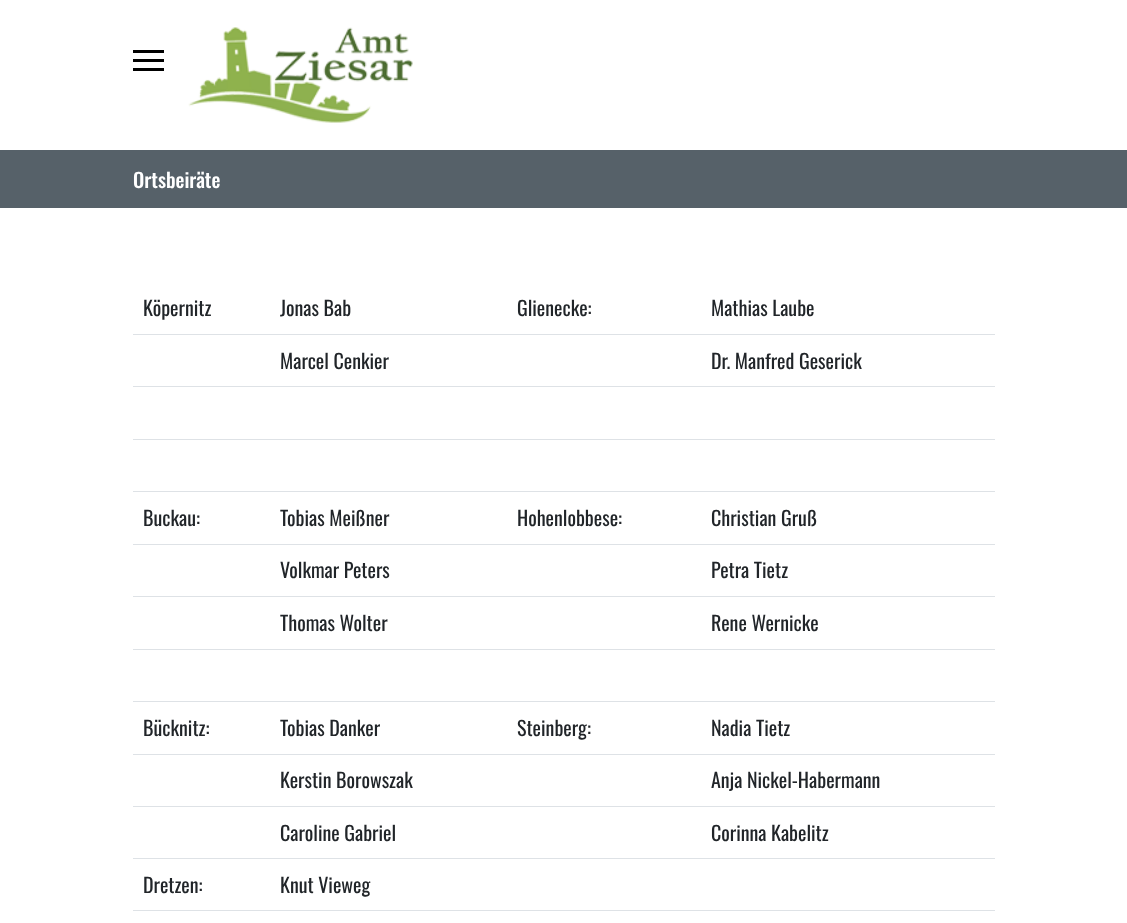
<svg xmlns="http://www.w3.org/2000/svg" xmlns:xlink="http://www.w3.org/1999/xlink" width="1127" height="923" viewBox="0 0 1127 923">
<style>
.cls-1{font:500 20px Oswald;fill:#ffffff}
.cls-2{font:20px Oswald;fill:#212529}
</style>
<rect width="100%" height="100%" fill="#ffffff"/>
<rect fill="#000000" x="133" y="50" width="31" height="3"/>
<rect fill="#000000" x="133" y="59" width="31" height="3"/>
<rect fill="#000000" x="133" y="68" width="31" height="3"/>
<image xlink:href="image0.png" x="188" y="27" width="225" height="96"/>
<rect fill="#566169" x="0" y="150" width="1127" height="58"/>
<rect fill="#dee2e6" x="133" y="334" width="862" height="1"/>
<rect fill="#dee2e6" x="133" y="386" width="862" height="1"/>
<rect fill="#dee2e6" x="133" y="439" width="862" height="1"/>
<rect fill="#dee2e6" x="133" y="491" width="862" height="1"/>
<rect fill="#dee2e6" x="133" y="544" width="862" height="1"/>
<rect fill="#dee2e6" x="133" y="596" width="862" height="1"/>
<rect fill="#dee2e6" x="133" y="649" width="862" height="1"/>
<rect fill="#dee2e6" x="133" y="701" width="862" height="1"/>
<rect fill="#dee2e6" x="133" y="754" width="862" height="1"/>
<rect fill="#dee2e6" x="133" y="806" width="862" height="1"/>
<rect fill="#dee2e6" x="133" y="858" width="862" height="1"/>
<rect fill="#dee2e6" x="133" y="910" width="862" height="1"/>
<text class="cls-1" x="133" y="188">Ortsbeiräte</text>
<text class="cls-2" x="143" y="316">Köpernitz</text>
<text class="cls-2" x="280" y="316">Jonas Bab</text>
<text class="cls-2" x="517" y="316">Glienecke:</text>
<text class="cls-2" x="711" y="316">Mathias Laube</text>
<text class="cls-2" x="280" y="369">Marcel Cenkier</text>
<text class="cls-2" x="711" y="369">Dr. Manfred Geserick</text>
<text class="cls-2" x="143" y="526">Buckau:</text>
<text class="cls-2" x="280" y="526">Tobias Meißner</text>
<text class="cls-2" x="517" y="526">Hohenlobbese:</text>
<text class="cls-2" x="711" y="526">Christian Gruß</text>
<text class="cls-2" x="280" y="578">Volkmar Peters</text>
<text class="cls-2" x="711" y="578">Petra Tietz</text>
<text class="cls-2" x="280" y="631">Thomas Wolter</text>
<text class="cls-2" x="711" y="631">Rene Wernicke</text>
<text class="cls-2" x="143" y="736">Bücknitz:</text>
<text class="cls-2" x="280" y="736">Tobias Danker</text>
<text class="cls-2" x="517" y="736">Steinberg:</text>
<text class="cls-2" x="711" y="736">Nadia Tietz</text>
<text class="cls-2" x="280" y="788">Kerstin Borowszak</text>
<text class="cls-2" x="711" y="788">Anja Nickel-Habermann</text>
<text class="cls-2" x="280" y="841">Caroline Gabriel</text>
<text class="cls-2" x="711" y="841">Corinna Kabelitz</text>
<text class="cls-2" x="143" y="893">Dretzen:</text>
<text class="cls-2" x="280" y="893">Knut Vieweg</text>
</svg>
